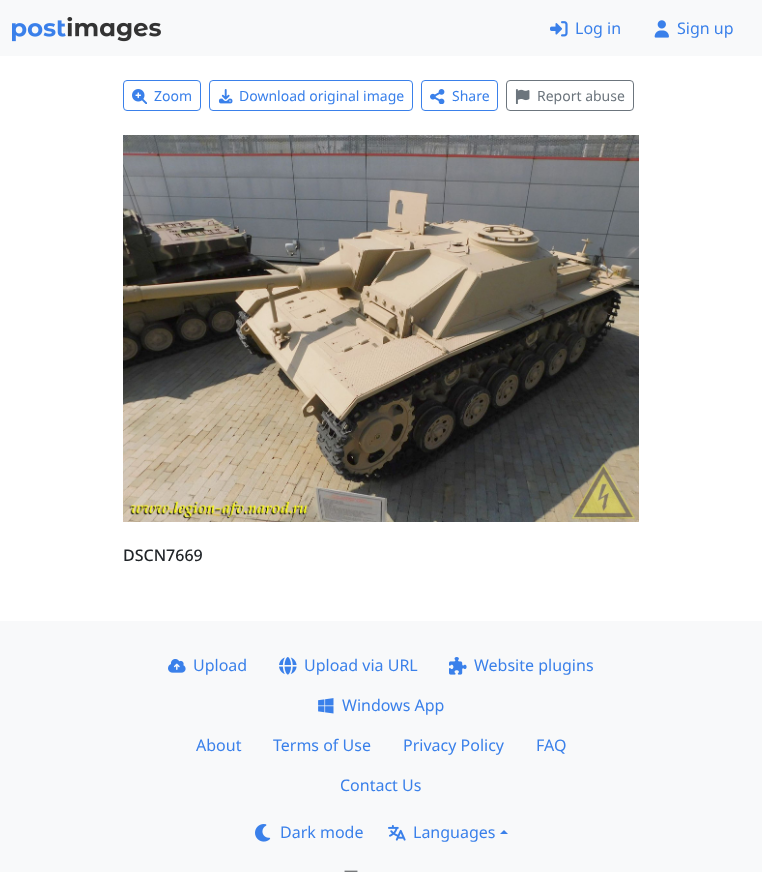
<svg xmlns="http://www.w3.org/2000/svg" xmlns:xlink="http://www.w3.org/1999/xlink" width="762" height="872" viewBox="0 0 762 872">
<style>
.cls-1{font:16px Noto Sans;fill:#3a80ea}
.cls-2{font:14px Noto Sans;fill:#3a80ea}
.cls-3{font:14px Noto Sans;fill:#6c757d}
.cls-4{font:500 16px Noto Sans;fill:#212529}
.cls-5{font:14px Noto Sans;fill:#575a5d}
</style>
<rect width="100%" height="100%" fill="#ffffff"/>
<rect fill="#f8f9fa" x="0" y="0" width="762" height="56"/>
<image xlink:href="image0.png" x="12" y="17" width="149" height="25"/>
<image xlink:href="image1.png" x="550" y="21" width="18" height="16"/>
<image xlink:href="image2.png" x="654" y="20" width="15" height="18"/>
<rect fill="none" stroke="#3a80ea" x="123.5" y="80.5" width="77" height="30" rx="3.5"/>
<image xlink:href="image3.png" x="132" y="89" width="15" height="15"/>
<rect fill="none" stroke="#3a80ea" x="209.5" y="80.5" width="203" height="30" rx="3.5"/>
<image xlink:href="image4.png" x="218" y="89" width="15" height="15"/>
<rect fill="none" stroke="#3a80ea" x="421.5" y="80.5" width="76" height="30" rx="3.5"/>
<image xlink:href="image5.png" x="430" y="89" width="15" height="15"/>
<rect fill="none" stroke="#6c757d" x="506.5" y="80.5" width="127" height="30" rx="3.5"/>
<image xlink:href="image6.png" x="515" y="89" width="15" height="15"/>
<image xlink:href="image7.png" x="123" y="135" width="516" height="387"/>
<rect fill="#f8f9fa" x="0" y="621" width="762" height="251"/>
<image xlink:href="image8.png" x="168" y="659" width="18" height="14"/>
<image xlink:href="image9.png" x="279" y="657" width="18" height="18"/>
<image xlink:href="image10.png" x="449" y="657" width="18" height="18"/>
<image xlink:href="image11.png" x="318" y="698" width="16" height="16"/>
<image xlink:href="image12.png" x="255" y="824" width="16" height="18"/>
<image xlink:href="image13.png" x="388" y="825" width="18" height="16"/>
<path fill="#3a80ea" d="M508 834H500L504 830Z"/>
<text class="cls-1" x="575" y="34">Log in</text>
<text class="cls-1" x="677" y="34">Sign up</text>
<text class="cls-2" x="154" y="101">Zoom</text>
<text class="cls-2" x="239" y="101">Download original image</text>
<text class="cls-2" x="452" y="101">Share</text>
<text class="cls-3" x="537" y="101">Report abuse</text>
<text class="cls-4" x="123" y="561">DSCN7669</text>
<text class="cls-1" x="193" y="671">Upload</text>
<text class="cls-1" x="304" y="671">Upload via URL</text>
<text class="cls-1" x="474" y="671">Website plugins</text>
<text class="cls-1" x="342" y="711">Windows App</text>
<text class="cls-1" x="196" y="751">About</text>
<text class="cls-1" x="273" y="751">Terms of Use</text>
<text class="cls-1" x="403" y="751">Privacy Policy</text>
<text class="cls-1" x="536" y="751">FAQ</text>
<text class="cls-1" x="340" y="791">Contact Us</text>
<text class="cls-1" x="280" y="838">Dark mode</text>
<text class="cls-1" x="413" y="838">Languages</text>
<text class="cls-5" x="344" y="875">—</text>
</svg>
